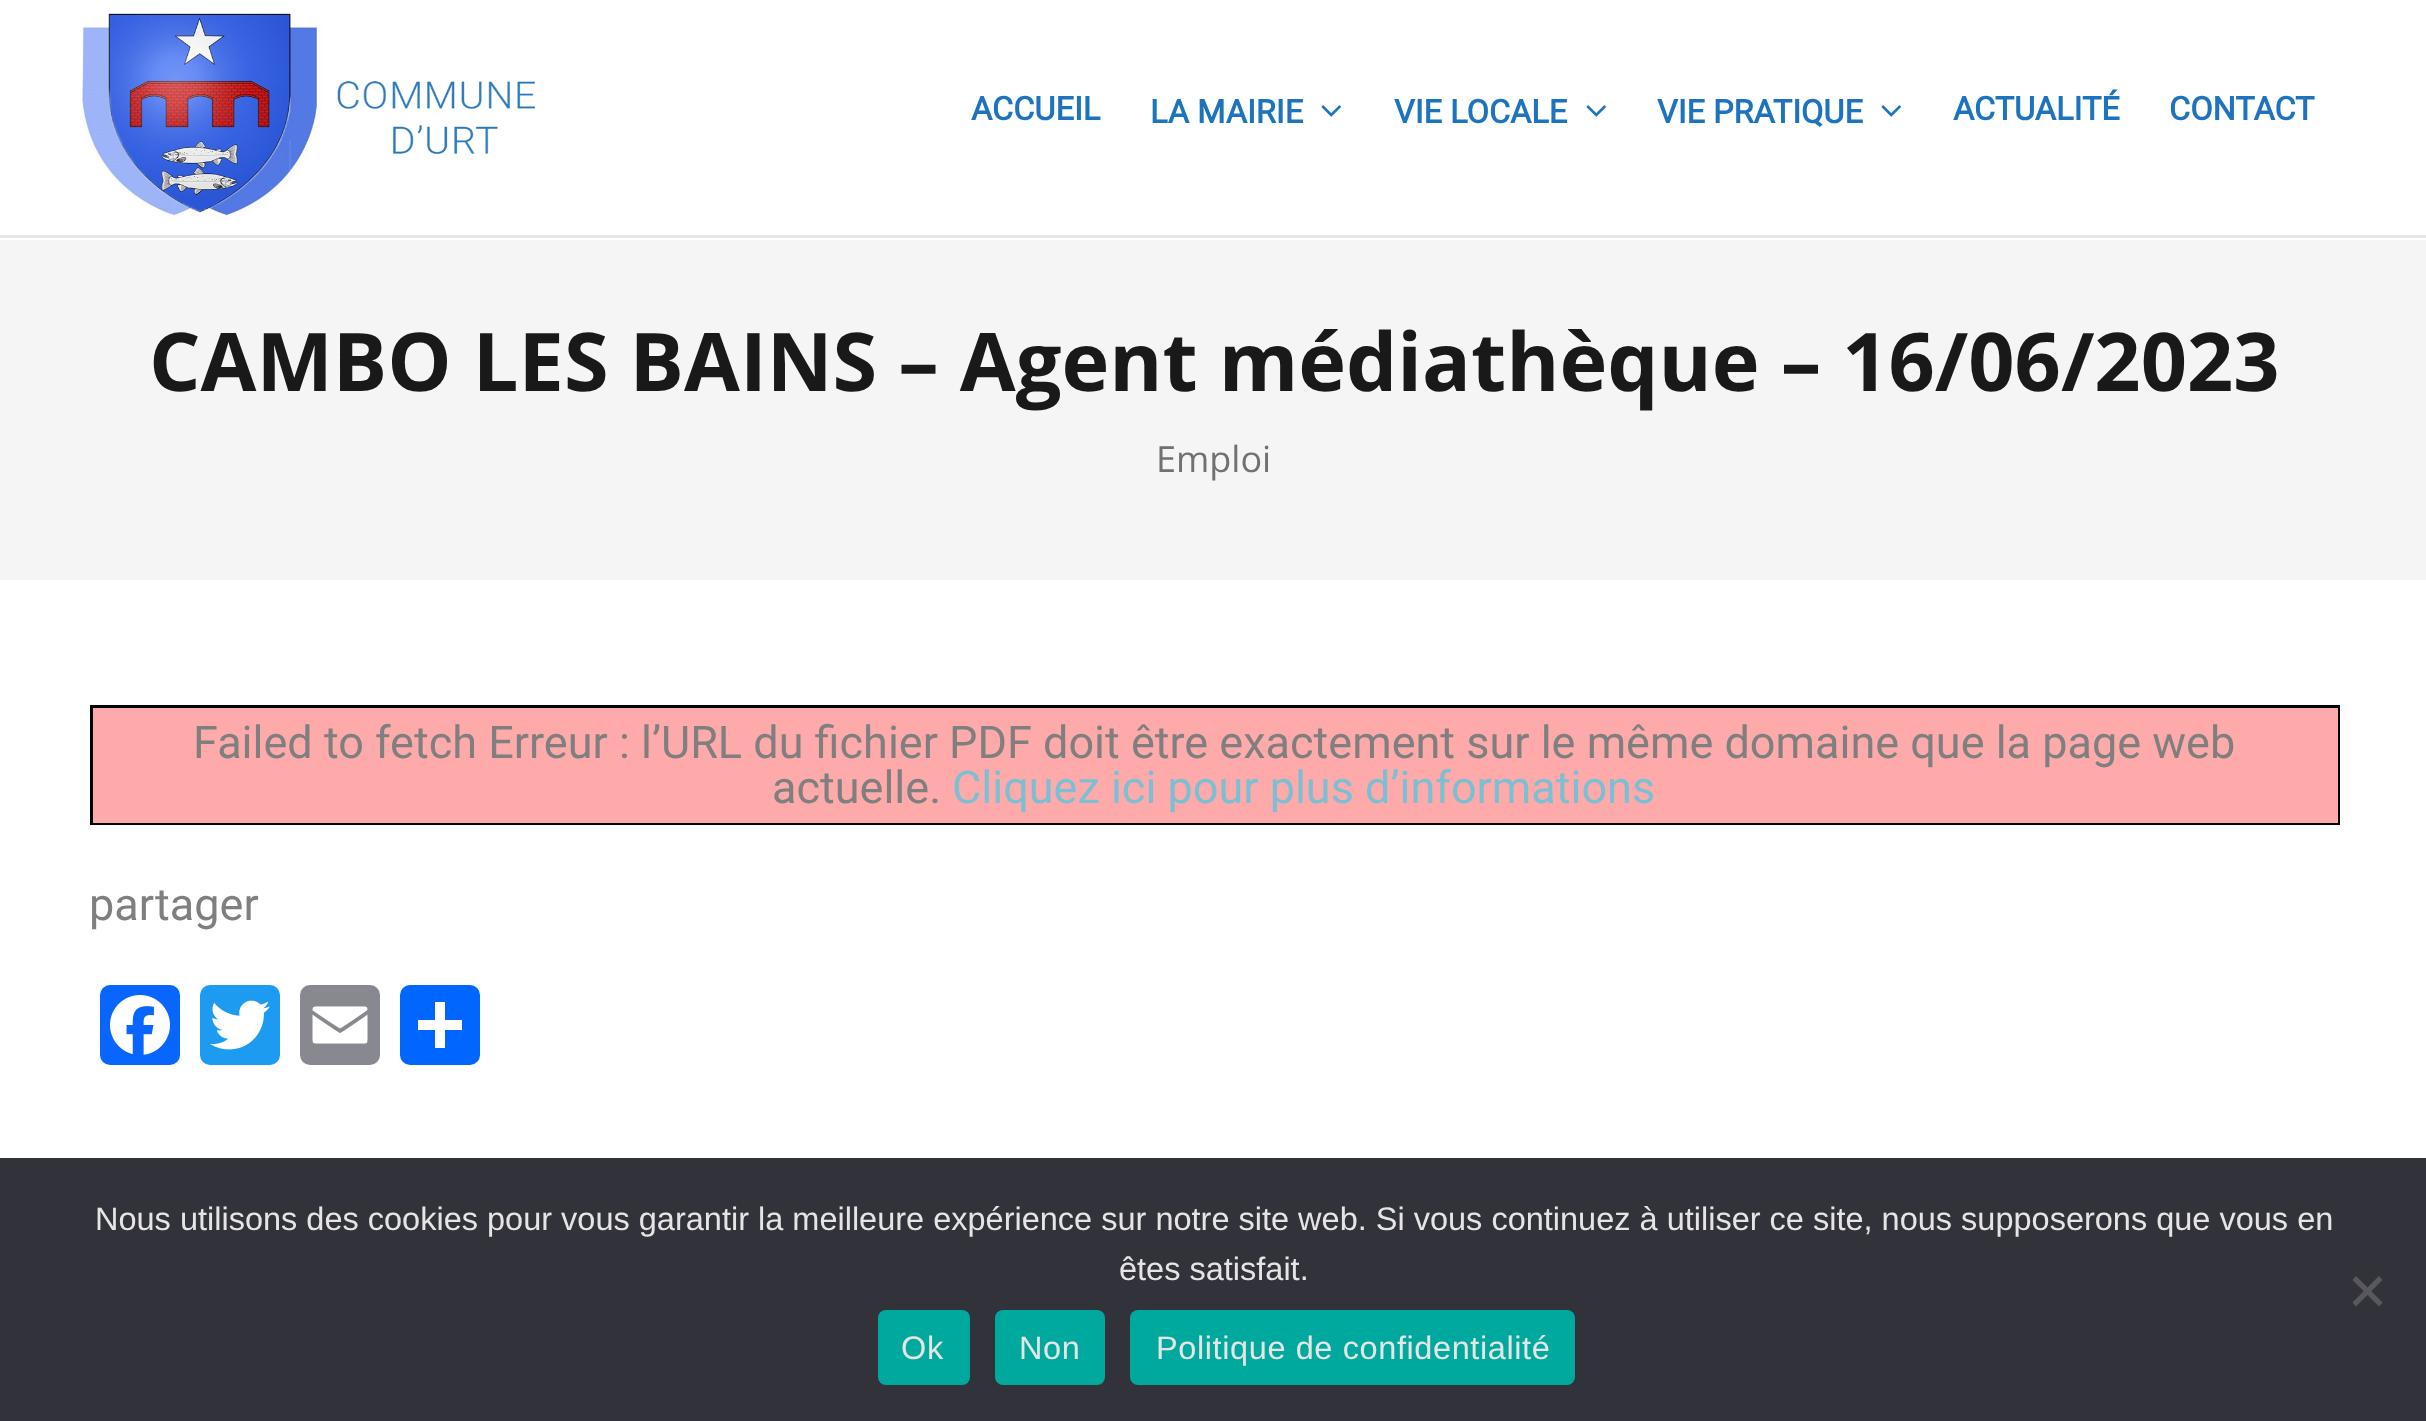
<svg xmlns="http://www.w3.org/2000/svg" xmlns:xlink="http://www.w3.org/1999/xlink" width="2426" height="1421" viewBox="0 0 2426 1421">
<style>
.cls-1{font:bold 32.5px Roboto;fill:#1e73be}
.cls-2{font:bold 81px Open Sans;fill:#191919}
.cls-3{font:36px Open Sans;fill:#717171}
.cls-4{font:45px Roboto;fill:#7f7f7f}
.cls-5{font:45px Roboto;fill:#7abfd3}
.cls-6{font:32.5px Liberation Sans;fill:#e5e5e5}
.cls-7{font:32.5px Liberation Sans;letter-spacing:0.6px;fill:#e5e5e5}
</style>
<rect width="100%" height="100%" fill="#ffffff"/>
<path fill="#e6e6e6" d="M0 235V238H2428V0V235Z"/>
<image xlink:href="image0.png" x="82" y="11" width="454" height="210"/>
<image xlink:href="image1.png" x="1321" y="105" width="20" height="12"/>
<image xlink:href="image1.png" x="1586" y="105" width="20" height="12"/>
<image xlink:href="image1.png" x="1881" y="105" width="20" height="12"/>
<rect fill="#f5f5f5" x="0" y="240" width="2426" height="340"/>
<rect fill="none" stroke="#000000" stroke-width="3" x="91.5" y="706.5" width="2247" height="117"/>
<rect fill="#ffaaaa" x="93" y="708" width="2245" height="115"/>
<rect fill="#0866ff" x="100" y="985" width="80" height="80" rx="10"/>
<image xlink:href="image2.png" x="110" y="995" width="60" height="60"/>
<rect fill="#1d9bf0" x="200" y="985" width="80" height="80" rx="10"/>
<image xlink:href="image3.png" x="210" y="1000" width="60" height="50"/>
<rect fill="#888990" x="300" y="985" width="80" height="80" rx="10"/>
<image xlink:href="image4.png" x="312" y="1006" width="56" height="38"/>
<rect fill="#0166ff" x="400" y="985" width="80" height="80" rx="10"/>
<rect fill="#ffffff" x="435" y="1002" width="10" height="46"/>
<rect fill="#ffffff" x="418" y="1020" width="44" height="10"/>
<rect fill="#32323a" x="0" y="1158" width="2426" height="263"/>
<path fill="#59595d" d="M2379 1276L2382.5 1280L2356 1306.5L2352.5 1302.5Z"/>
<path fill="#59595d" d="M2352.5 1280L2356 1276L2382.5 1302.5L2379 1306.5Z"/>
<rect fill="#00a99d" x="878" y="1310" width="92" height="75" rx="8"/>
<rect fill="#00a99d" x="995" y="1310" width="110" height="75" rx="8"/>
<rect fill="#00a99d" x="1130" y="1310" width="445" height="75" rx="8"/>
<text class="cls-1" x="971" y="120">ACCUEIL</text>
<text class="cls-1" x="1150" y="123">LA MAIRIE</text>
<text class="cls-1" x="1394" y="123">VIE LOCALE</text>
<text class="cls-1" x="1657" y="123">VIE PRATIQUE</text>
<text class="cls-1" x="1953" y="120">ACTUALITÉ</text>
<text class="cls-1" x="2169" y="120">CONTACT</text>
<text class="cls-2" x="149" y="391">CAMBO LES BAINS – Agent médiathèque – 16/06/2023</text>
<text class="cls-3" x="1156" y="472">Emploi</text>
<text class="cls-4" x="193" y="758">Failed to fetch Erreur : l’URL du fichier PDF doit être exactement sur le même domaine que la page web</text>
<text class="cls-4" x="772" y="803">actuelle.</text>
<text class="cls-5" x="952" y="803">Cliquez ici pour plus d’informations</text>
<text class="cls-4" x="89" y="920">partager</text>
<text class="cls-6" x="95" y="1230">Nous utilisons des cookies pour vous garantir la meilleure expérience sur notre site web. Si vous continuez à utiliser ce site, nous supposerons que vous en</text>
<text class="cls-6" x="1119" y="1280">êtes satisfait.</text>
<text class="cls-7" x="901" y="1359">Ok</text>
<text class="cls-7" x="1019" y="1359">Non</text>
<text class="cls-7" x="1156" y="1359">Politique de confidentialité</text>
</svg>
